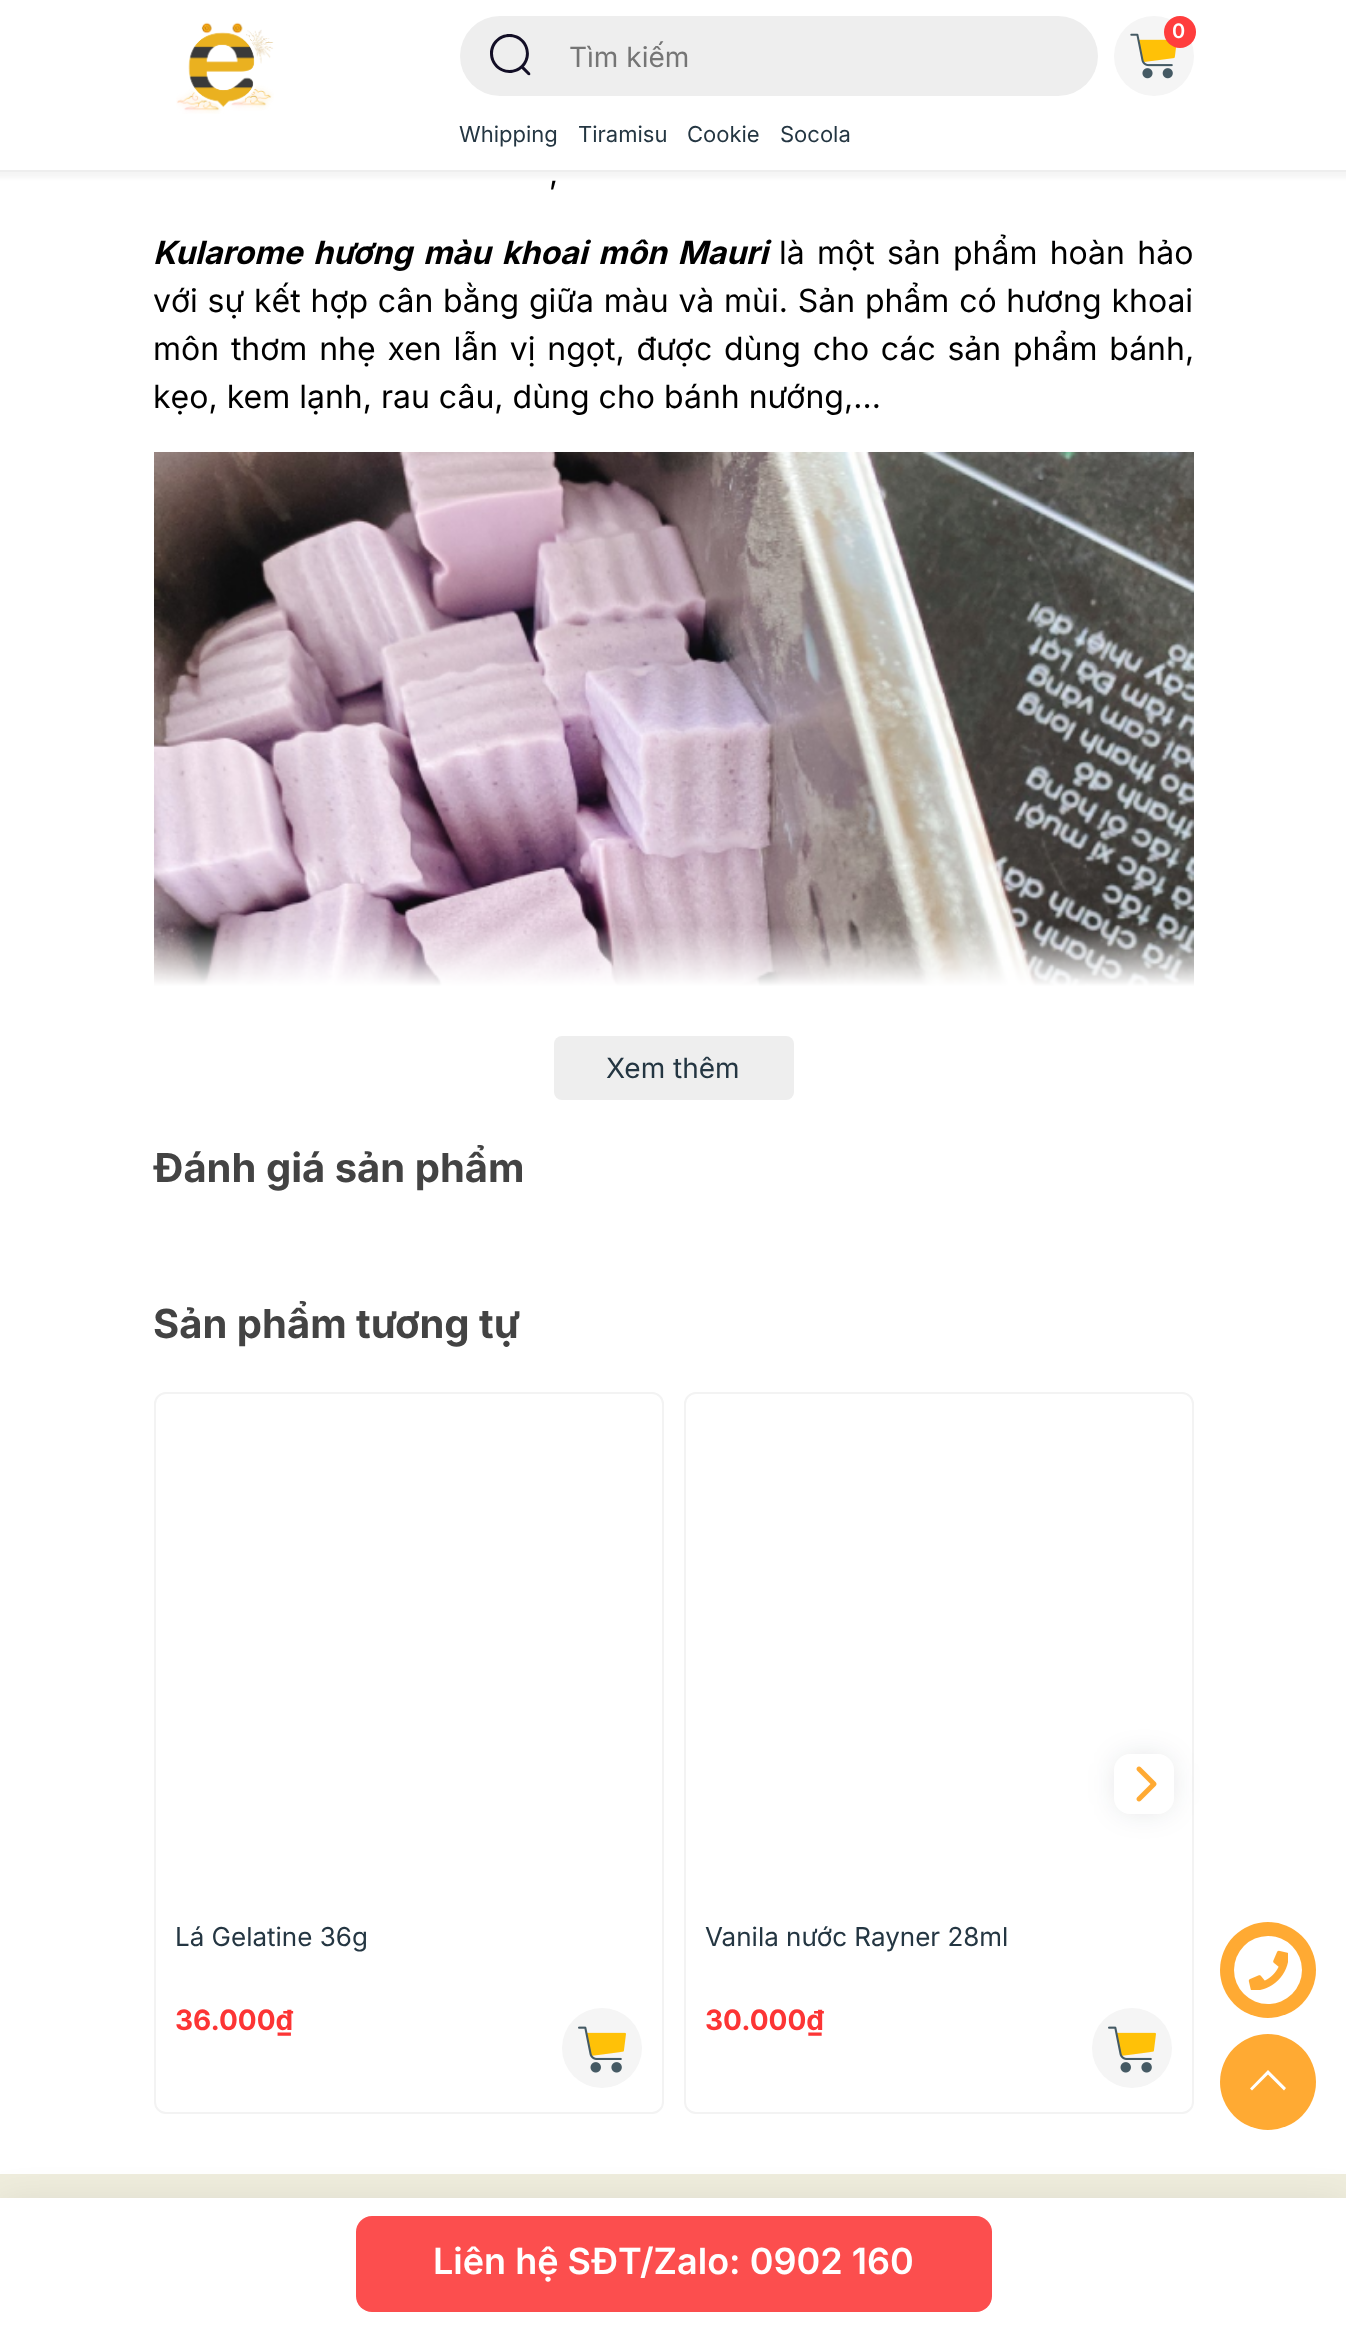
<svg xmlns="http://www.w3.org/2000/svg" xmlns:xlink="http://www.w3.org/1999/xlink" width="1346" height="2330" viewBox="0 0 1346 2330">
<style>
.cls-1{font:600 20px Inter;fill:#ffffff}
.cls-2{font:28px Inter;fill:#757575}
.cls-3{font:22px Inter;fill:#243642}
.cls-4{font:32px Inter;fill:#000000}
.cls-5{font:italic bold 32px Inter;fill:#000000}
.cls-6{font:28px Inter;fill:#243642}
.cls-7{font:bold 40px Inter;fill:#434343}
.cls-8{font:26px Inter;fill:#243642}
.cls-9{font:bold 28px Inter;fill:#fc3535}
.cls-10{font:600 36px Inter;fill:#ffffff}
</style>
<rect width="100%" height="100%" fill="#ffffff"/>
<rect fill="#000000" fill-opacity="0.04" filter="blur(2px)" x="-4" y="-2" width="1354" height="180"/>
<rect fill="#ffffff" x="0" y="0" width="1346" height="170"/>
<rect fill="#eeeeee" x="0" y="170" width="1346" height="2"/>
<image xlink:href="image0.png" x="176" y="22" width="98" height="92"/>
<circle fill="#f5f5f5" cx="1154" cy="56" r="40"/>
<image xlink:href="image1.png" x="1130" y="33" width="47" height="46"/>
<circle fill="#ff3d3d" cx="1180" cy="32" r="16"/>
<rect fill="#eeeeee" x="460" y="16" width="638" height="80" rx="40"/>
<image xlink:href="image2.png" x="490" y="34" width="41" height="42"/>
<image xlink:href="image3.png" x="154" y="452" width="1040" height="584"/>
<rect fill="#eeeeee" x="554" y="1036" width="240" height="64" rx="8"/>
<rect fill="none" stroke="#f3f3f3" stroke-width="2" x="685" y="1393" width="508" height="720" rx="11"/>
<rect fill="#101828" fill-opacity="0.2" filter="blur(16px)" x="1122" y="1762" width="44" height="44" rx="8"/>
<rect fill="#ffffff" x="1114" y="1754" width="60" height="60" rx="16"/>
<image xlink:href="image4.png" x="1136" y="1766" width="21" height="36"/>
<rect fill="none" stroke="#f3f3f3" stroke-width="2" x="155" y="1393" width="508" height="720" rx="11"/>
<circle fill="#f5f5f5" cx="602" cy="2048" r="40"/>
<image xlink:href="image5.png" x="578" y="2026" width="48" height="47"/>
<circle fill="#f5f5f5" cx="1132" cy="2048" r="40"/>
<image xlink:href="image5.png" x="1108" y="2026" width="48" height="47"/>
<rect fill="#efeddd" x="0" y="2174" width="1346" height="24"/>
<rect fill="#000000" fill-opacity="0.1" filter="blur(20px)" x="0" y="2206" width="1346" height="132"/>
<rect fill="#ffffff" x="0" y="2198" width="1346" height="132"/>
<rect fill="#fc4e4e" x="356" y="2216" width="636" height="96" rx="16"/>
<circle fill="#ffaa33" cx="1268" cy="2082" r="48"/>
<path fill="#ffffff" d="M1270.5 2072.5L1268 2070L1250 2088.5L1252 2090.5L1268 2074.5L1284 2090.5L1286 2088L1277 2079Z"/>
<circle fill="#ffaa33" cx="1268" cy="1970" r="48"/>
<circle fill="#ffffff" cx="1268" cy="1970" r="34"/>
<image xlink:href="image6.png" x="1248" y="1950" width="40" height="40"/>
<text class="cls-1" x="1172" y="38">0</text>
<text class="cls-2" x="569" y="67">Tìm kiếm</text>
<text class="cls-3" x="459" y="142">Whipping</text>
<text class="cls-3" x="578" y="142">Tiramisu</text>
<text class="cls-3" x="687" y="142">Cookie</text>
<text class="cls-3" x="780" y="142">Socola</text>
<text class="cls-4" x="549" y="184">,</text>
<text class="cls-5" x="153" y="264" word-spacing="3.25">Kularome hương màu khoai môn Mauri</text>
<text class="cls-4" x="779" y="264" word-spacing="3.25">là một sản phẩm hoàn hảo</text>
<text class="cls-4"><tspan x="153" y="312" word-spacing="0.75">với sự kết hợp cân bằng giữa màu và mùi. Sản phẩm có hương khoai</tspan><tspan x="153" y="360" word-spacing="2.75">môn thơm nhẹ xen lẫn vị ngọt, được dùng cho các sản phẩm bánh,</tspan><tspan x="153" y="408">kẹo, kem lạnh, rau câu, dùng cho bánh nướng,...</tspan></text>
<text class="cls-6" x="606" y="1078">Xem thêm</text>
<text class="cls-7" x="153" y="1182">Đánh giá sản phẩm</text>
<text class="cls-7" x="153" y="1338">Sản phẩm tương tự</text>
<text class="cls-8" x="175" y="1946">Lá Gelatine 36g</text>
<text class="cls-9" x="175" y="2030">36.000₫</text>
<text class="cls-8" x="705" y="1946">Vanila nước Rayner 28ml</text>
<text class="cls-9" x="705" y="2030">30.000₫</text>
<text class="cls-10" x="433" y="2274">Liên hệ SĐT/Zalo: 0902 160</text>
</svg>
